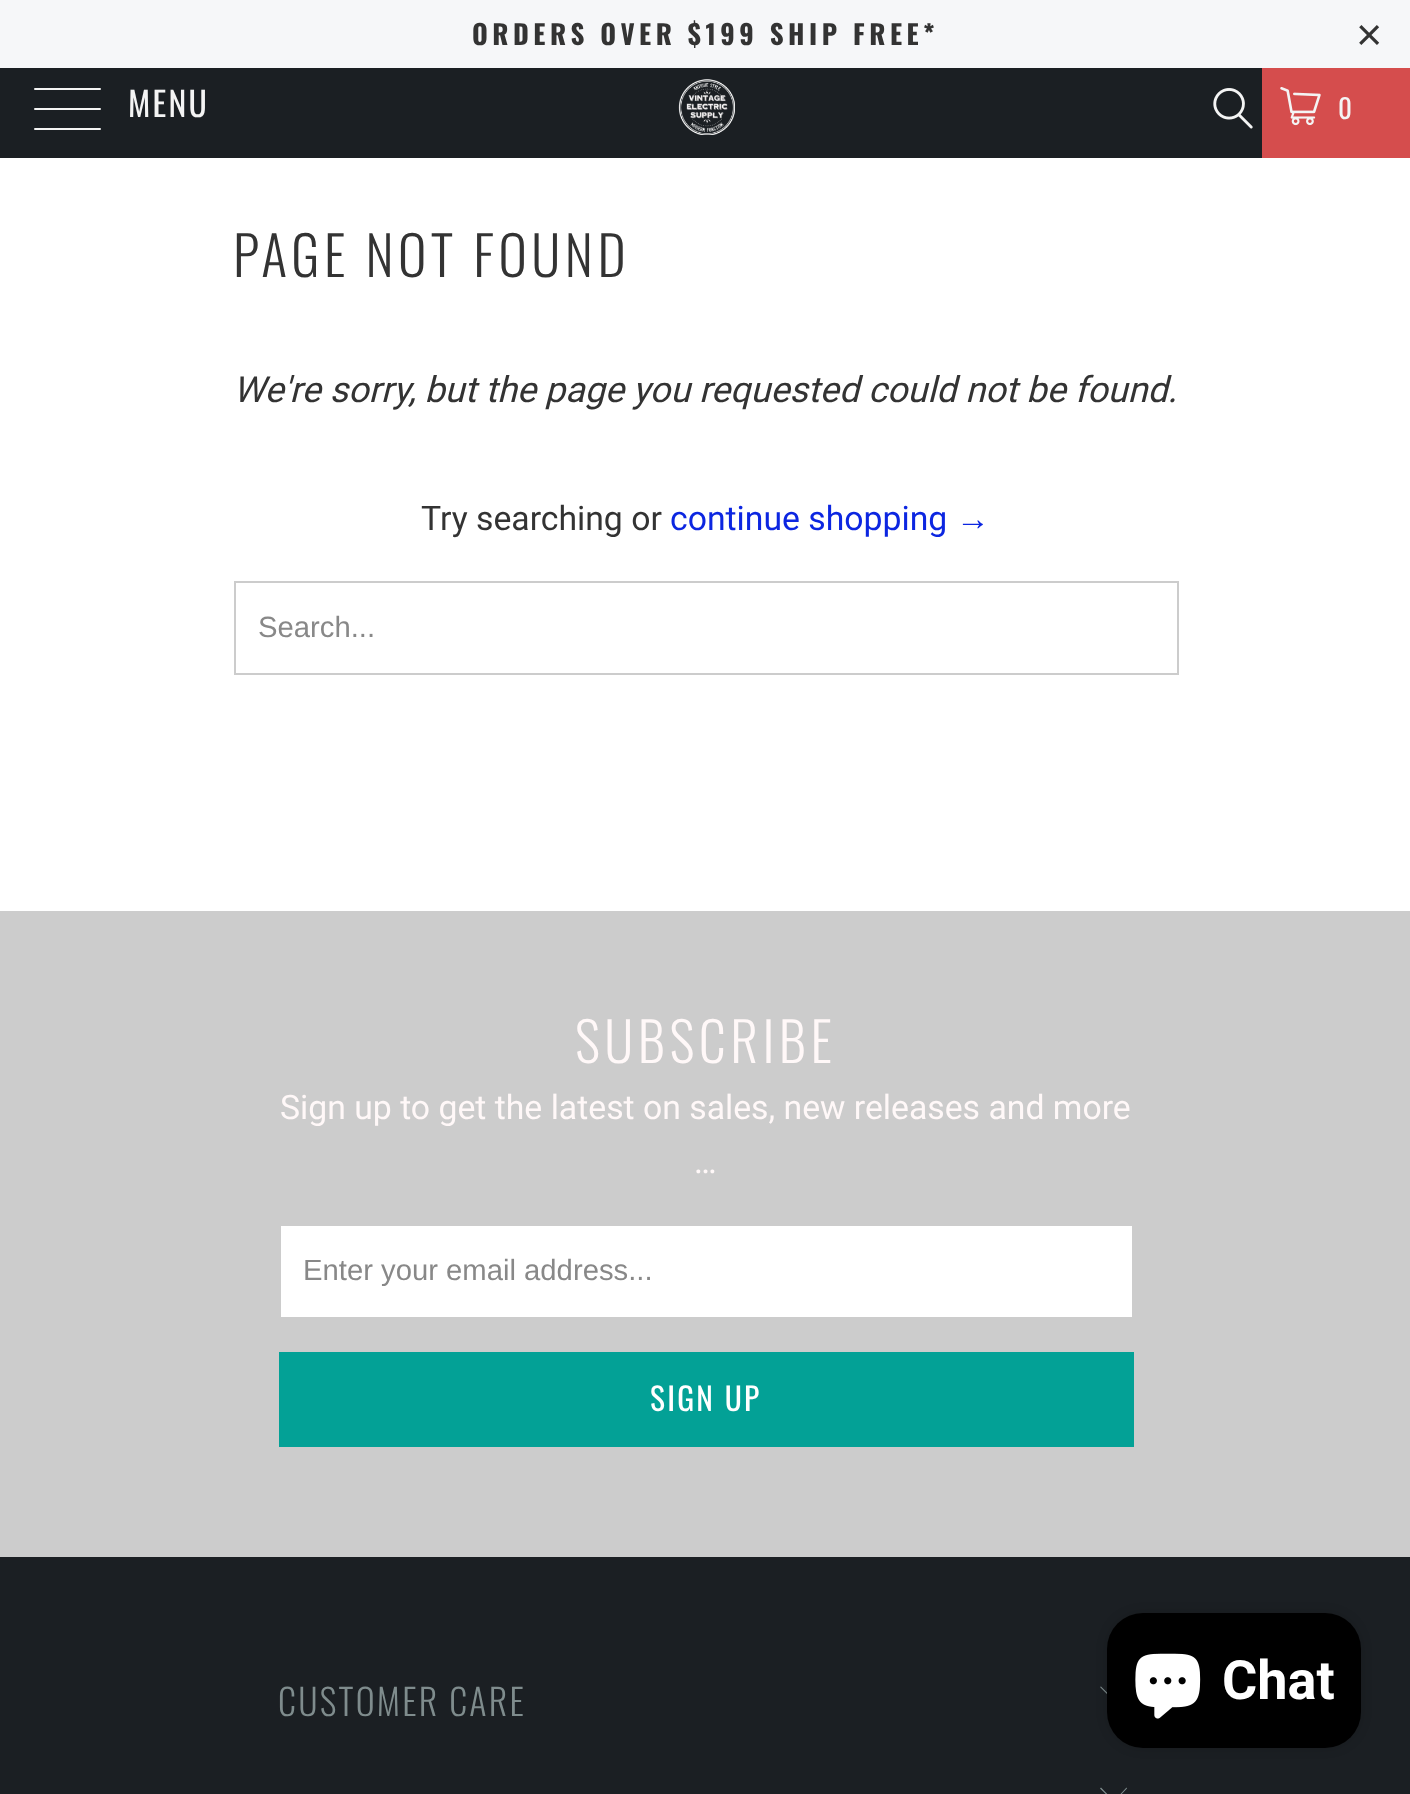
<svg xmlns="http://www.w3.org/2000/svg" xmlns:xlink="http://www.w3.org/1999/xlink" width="1410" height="1794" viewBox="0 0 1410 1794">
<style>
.cls-1{font:bold 27px Oswald;letter-spacing:4.5px;fill:#333333}
.cls-2{font:45px Liberation Sans;letter-spacing:4.5px;fill:#333333}
.cls-3{font:33.75px Oswald;letter-spacing:2.25px;fill:#f4f4f4}
.cls-4{font:27px Oswald;letter-spacing:2.25px;fill:#f4f4f4}
.cls-5{font:300 54px Oswald;letter-spacing:4.5px;fill:#333333}
.cls-6{font:italic 36px Roboto;fill:#333333}
.cls-7{font:33.75px Roboto;fill:#333333}
.cls-8{font:33.75px Roboto;fill:#0c26e1}
.cls-9{font:33.75px Liberation Serif;fill:#0c26e1}
.cls-10{font:29.25px Liberation Sans;fill:#888888}
.cls-11{font:300 54px Oswald;letter-spacing:4.5px;fill:#fff8f8}
.cls-12{font:33.75px Roboto;fill:#fff8f8}
.cls-13{font:31.5px Oswald;letter-spacing:2.25px;fill:#ffffff}
.cls-14{font:300 36px Oswald;letter-spacing:2.25px;fill:#7f8c8d}
.cls-15{font:bold 54px Roboto;fill:#ffffff}
</style>
<rect width="100%" height="100%" fill="#ffffff"/>
<rect fill="#f6f7f9" x="0" y="0" width="1410" height="68"/>
<rect fill="#1b1f23" x="0" y="68" width="1262" height="90"/>
<rect fill="#f4f4f4" x="34" y="88" width="67" height="2" rx="1"/>
<rect fill="#f4f4f4" x="34" y="108" width="67" height="2" rx="1"/>
<rect fill="#f4f4f4" x="34" y="128" width="67" height="2" rx="1"/>
<image xlink:href="image0.png" x="678" y="79" width="57" height="56"/>
<image xlink:href="image1.png" x="1213" y="88" width="40" height="41"/>
<rect fill="#d54d4d" x="1262" y="68" width="148" height="90"/>
<image xlink:href="image2.png" x="1280" y="87" width="41" height="39"/>
<rect fill="none" stroke="#cccccc" stroke-width="2" x="235" y="582" width="943" height="92"/>
<rect fill="#cccccc" x="0" y="911" width="1410" height="646"/>
<rect fill="#ffffff" x="281" y="1226" width="851" height="91"/>
<rect fill="#03a196" x="279" y="1352" width="855" height="95"/>
<rect fill="#1b1f23" x="0" y="1557" width="1410" height="237"/>
<path fill="#7f8c8d" d="M1114 1701L1100 1687L1101 1686.5L1114 1699.5L1126.5 1686.5L1127 1687Z"/>
<path fill="#7f8c8d" d="M1114 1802L1100 1788.5L1101 1787.5L1114 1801L1126.5 1787.5L1127 1788.5Z"/>
<rect fill="#000000" fill-opacity="0.15" filter="blur(5.5px)" x="1107" y="1613" width="254" height="135" rx="36"/>
<rect fill="#000000" x="1107" y="1613" width="254" height="135" rx="36"/>
<image xlink:href="image3.png" x="1135" y="1653" width="66" height="66"/>
<text class="cls-1" x="472" y="45">ORDERS OVER $199 SHIP FREE*</text>
<text class="cls-2" x="1356" y="50">×</text>
<text class="cls-3" x="128" y="117">MENU</text>
<text class="cls-4" x="1338" y="119">0</text>
<text class="cls-5" x="233" y="277">PAGE NOT FOUND</text>
<text class="cls-6" x="233" y="402">We're sorry, but the page you requested could not be found.</text>
<text class="cls-7" x="421" y="530">Try searching or</text>
<text class="cls-8" x="670" y="530">continue shopping</text>
<text class="cls-9" x="956" y="530">→</text>
<text class="cls-10" x="258" y="637">Search...</text>
<text class="cls-11" x="575" y="1063">SUBSCRIBE</text>
<text class="cls-12" x="280" y="1119">Sign up to get the latest on sales, new releases and more</text>
<text class="cls-12" x="694" y="1173">…</text>
<text class="cls-10" x="303" y="1280">Enter your email address...</text>
<text class="cls-13" x="650" y="1411">SIGN UP</text>
<text class="cls-14" x="278" y="1716">CUSTOMER CARE</text>
<text class="cls-15" x="1222" y="1699">Chat</text>
</svg>
